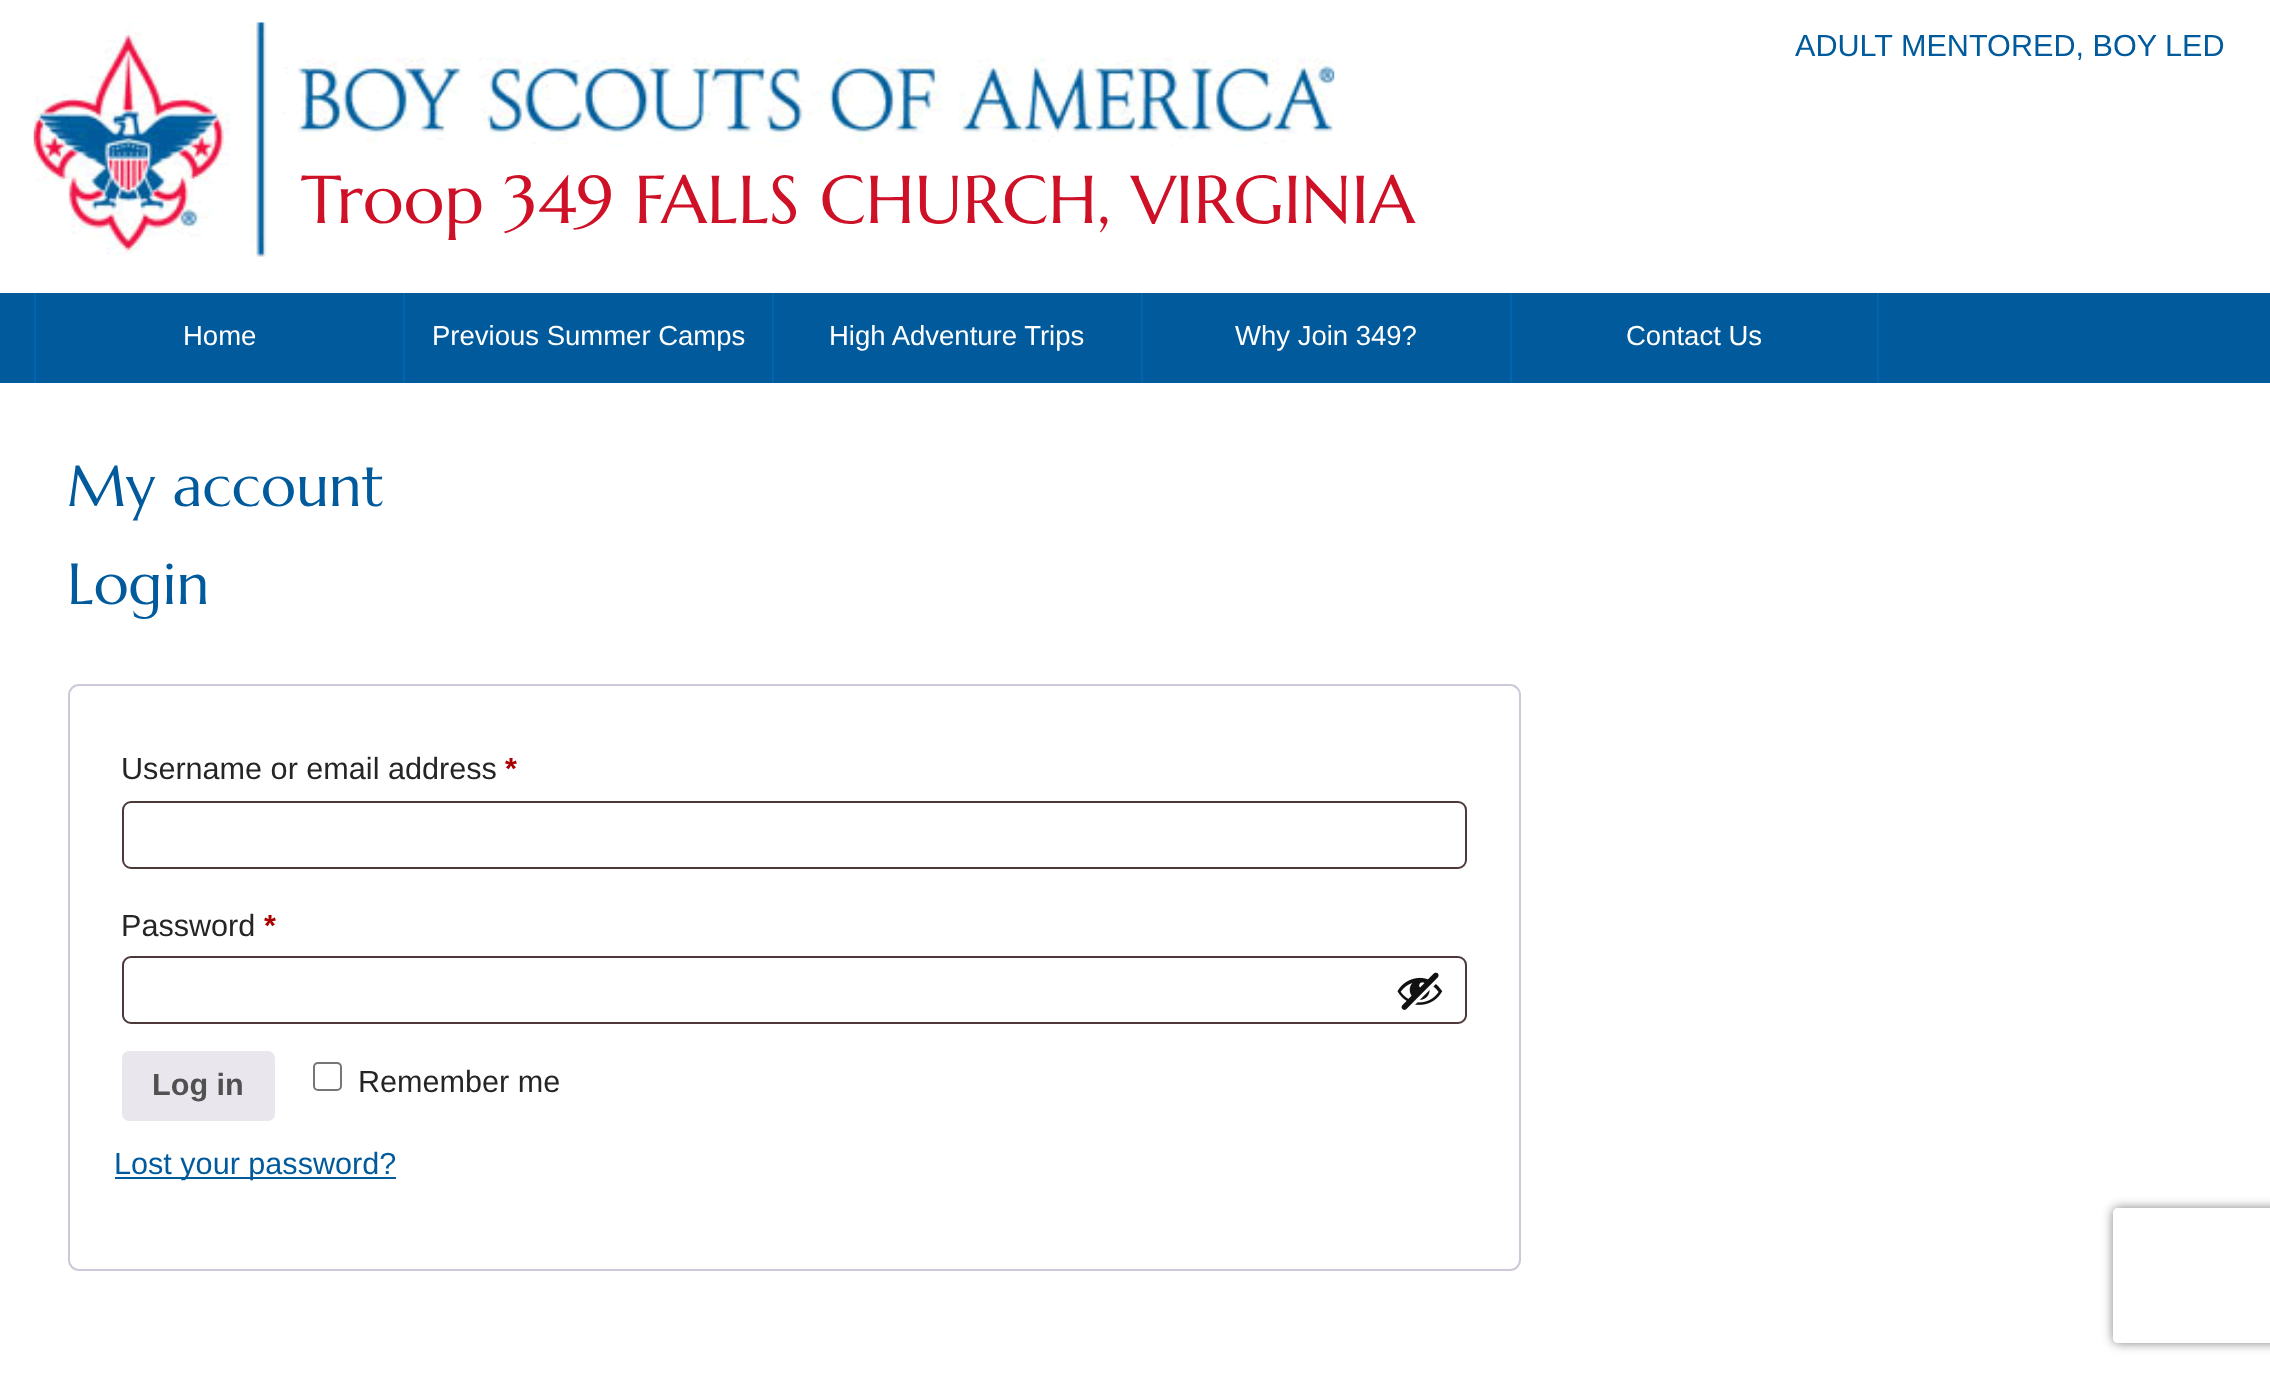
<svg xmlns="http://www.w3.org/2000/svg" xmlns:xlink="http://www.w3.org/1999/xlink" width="2270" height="1373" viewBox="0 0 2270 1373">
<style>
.cls-1{font:30.6px Liberation Sans;fill:#005a9c}
.cls-2{font:67.5px Marcellus;fill:#ce1126}
.cls-3{font:27.5px Liberation Sans;fill:#ffffff}
.cls-4{font:58px Marcellus;fill:#005a9c}
.cls-5{font:30.6px Liberation Sans;fill:#252525}
.cls-6{font:bold 30.6px Liberation Sans;fill:#aa0000}
.cls-7{font:bold 30.6px Liberation Sans;fill:#515151}
</style>
<defs>
<clipPath id="clip1"><path d="M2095 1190H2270V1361H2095ZM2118 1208H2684C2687 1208 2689 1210 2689 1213V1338C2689 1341 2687 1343 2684 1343H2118C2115 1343 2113 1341 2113 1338V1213C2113 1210 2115 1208 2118 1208Z" clip-rule="evenodd"/></clipPath>
</defs>
<rect width="100%" height="100%" fill="#ffffff"/>
<image xlink:href="image0.png" x="33" y="22" width="255" height="235"/>
<image xlink:href="image1.png" x="297" y="57" width="1038" height="89"/>
<rect fill="#005a9c" x="0" y="293" width="2270" height="90"/>
<rect fill="#0065ad" x="34" y="293" width="2" height="90"/>
<rect fill="#0065ad" x="403" y="293" width="2" height="90"/>
<rect fill="#0065ad" x="772" y="293" width="2" height="90"/>
<rect fill="#0065ad" x="1141" y="293" width="2" height="90"/>
<rect fill="#0065ad" x="1877" y="293" width="2" height="90"/>
<rect fill="#0065ad" x="1510" y="293" width="2" height="90"/>
<rect fill="none" stroke="#cfc8d8" stroke-width="2" x="69" y="685" width="1451" height="585" rx="10"/>
<rect fill="none" stroke="#4d3939" stroke-width="2" x="123" y="802" width="1343" height="66" rx="8"/>
<rect fill="none" stroke="#4d3939" stroke-width="2" x="123" y="957" width="1343" height="66" rx="8"/>
<image xlink:href="image2.png" x="1397" y="972" width="46" height="38"/>
<rect fill="#e9e6ed" x="122" y="1051" width="153" height="70" rx="7"/>
<rect fill="none" stroke="#767676" stroke-width="2" x="314" y="1063" width="27" height="27" rx="4"/>
<rect fill="#005a9c" x="115" y="1177" width="281" height="2"/>
<g clip-path="url(#clip1)">
<rect fill="#808080" filter="blur(5.5px)" x="2113" y="1208" width="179" height="135" rx="5"/>
</g>
<text class="cls-1" x="1795" y="56">ADULT MENTORED, BOY LED</text>
<text class="cls-2" x="301" y="223">Troop 349 FALLS CHURCH, VIRGINIA</text>
<text class="cls-3" x="183" y="345">Home</text>
<text class="cls-3" x="432" y="345">Previous Summer Camps</text>
<text class="cls-3" x="829" y="345">High Adventure Trips</text>
<text class="cls-3" x="1235" y="345">Why Join 349?</text>
<text class="cls-3" x="1626" y="345">Contact Us</text>
<text class="cls-4"><tspan x="67" y="506">My account</tspan><tspan x="67" y="604">Login</tspan></text>
<text class="cls-5" x="121" y="779">Username or email address</text>
<text class="cls-6" x="505" y="779">*</text>
<text class="cls-5" x="121" y="936">Password</text>
<text class="cls-6" x="264" y="936">*</text>
<text class="cls-7" x="152" y="1095">Log in</text>
<text class="cls-5" x="358" y="1092">Remember me</text>
<text class="cls-1" x="114" y="1174">Lost your password?</text>
</svg>
